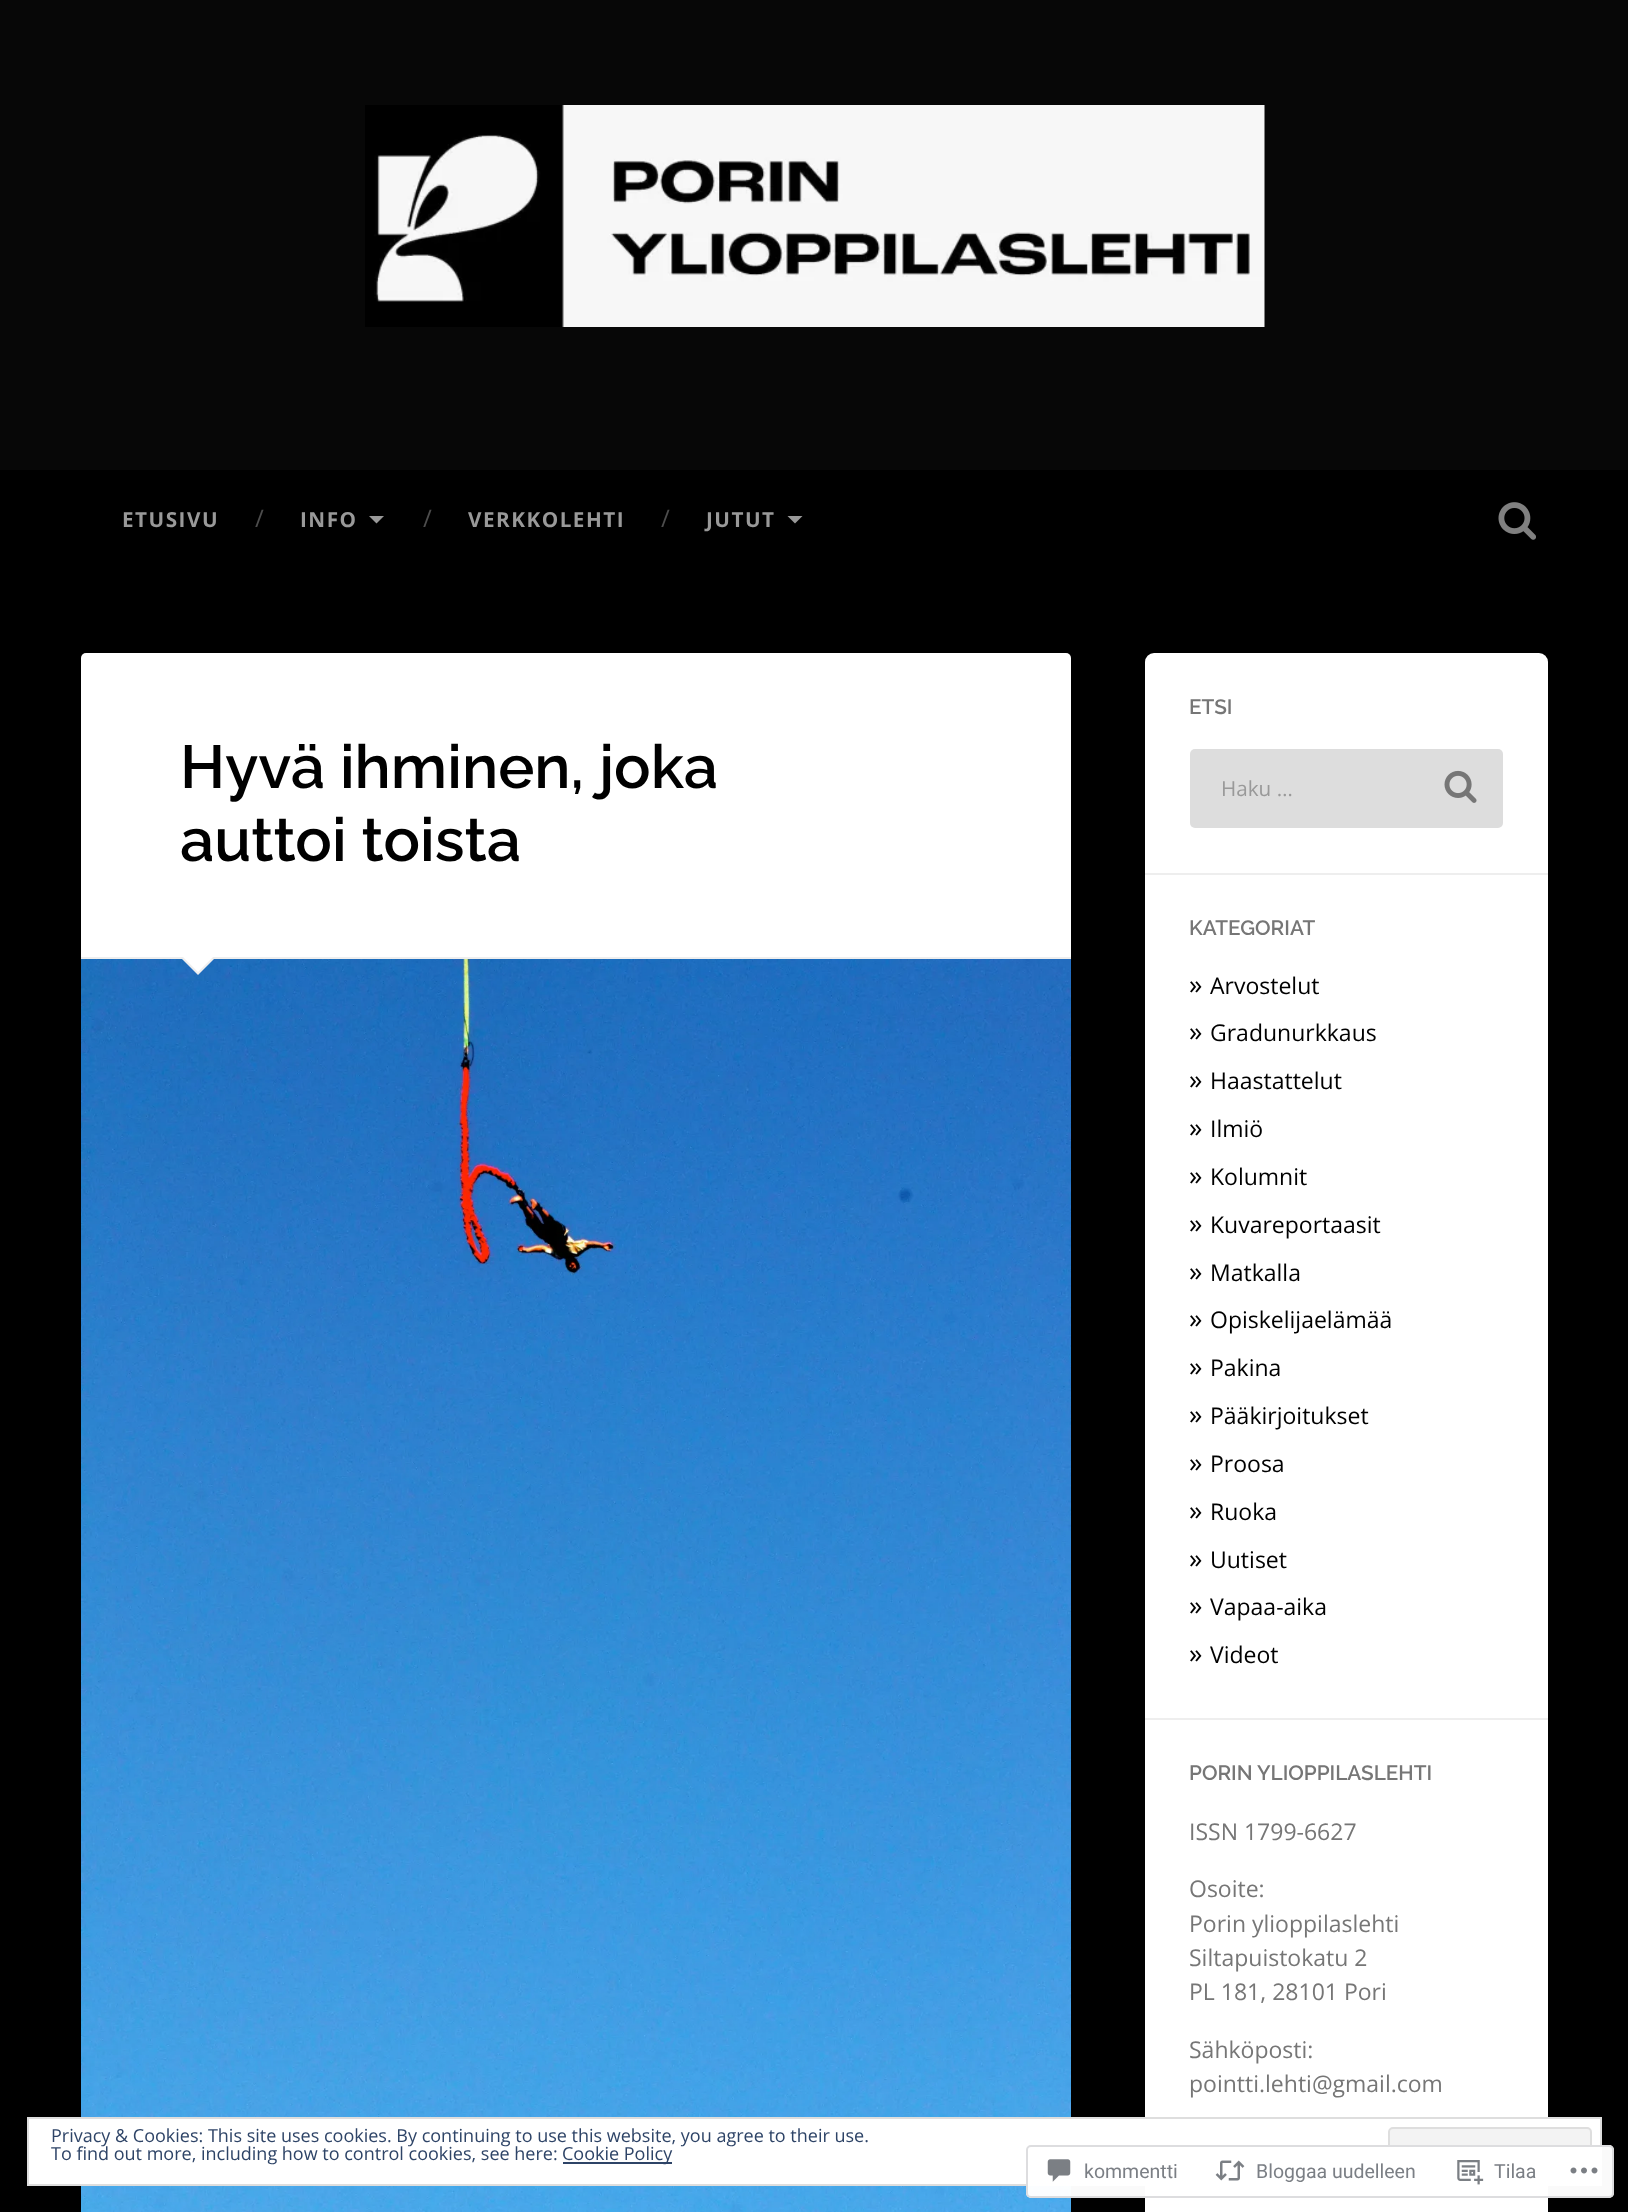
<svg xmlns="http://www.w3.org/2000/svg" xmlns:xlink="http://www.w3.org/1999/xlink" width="1628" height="2212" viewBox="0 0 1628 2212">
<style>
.cls-1{font:bold 20.7px Open Sans;letter-spacing:1.5px;fill:#999999}
.cls-2{font:24px Open Sans;fill:#4d4d4d}
.cls-3{font:100 60.75px Raleway;fill:#000000}
.cls-4{font:100 20.7px Raleway;fill:#767676}
.cls-5{font:20.7px Open Sans;fill:#999999}
.cls-6{font:27px Open Sans;fill:#000000}
.cls-7{font:23px Open Sans;fill:#000000}
.cls-8{font:23px Open Sans;fill:#767676}
.cls-9{font:18px Open Sans;fill:#2e4467}
.cls-10{font:19.5px Roboto;fill:#7b7f85}
</style>
<rect width="100%" height="100%" fill="#000000"/>
<rect fill="#070707" x="0" y="0" width="1628" height="470"/>
<image xlink:href="image0.png" x="365" y="105" width="900" height="222"/>
<path fill="#999999" d="M369 516H384L376.5 523.5Z"/>
<path fill="#999999" d="M787.5 516H802.5L795 523.5Z"/>
<image xlink:href="image1.png" x="1498" y="502" width="38" height="38"/>
<rect fill="#ffffff" x="81" y="653" width="990" height="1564" rx="5"/>
<rect fill="#eeeeee" x="81" y="957" width="990" height="2"/>
<image xlink:href="image2.png" x="81" y="959" width="990" height="1253"/>
<path fill="#eeeeee" d="M180 957H216L198 975Z"/>
<path fill="#ffffff" d="M181.5 955.5H214.5L198 972Z"/>
<rect fill="#ffffff" x="1145" y="653" width="403" height="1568" rx="9"/>
<rect fill="#dddddd" x="1190" y="749" width="313" height="79" rx="5"/>
<image xlink:href="image3.png" x="1444" y="770" width="33" height="33"/>
<rect fill="#eeeeee" x="1145" y="873" width="403" height="2"/>
<rect fill="#eeeeee" x="1145" y="1718" width="403" height="2"/>
<rect fill="#ffffff" stroke="#dedede" stroke-width="2" x="28" y="2118" width="1573" height="67"/>
<rect fill="#f3f3f3" stroke="#dedede" stroke-width="2" x="1389" y="2128" width="202" height="46" rx="4"/>
<rect fill="#2e4467" x="563" y="2162" width="109" height="2"/>
<rect fill="#ffffff" fill-opacity="0.98" x="1026" y="2145" width="588" height="53" rx="5"/>
<rect fill="none" stroke="#dcdcde" stroke-opacity="0.98" stroke-width="2" x="1027" y="2146" width="586" height="51" rx="4"/>
<image xlink:href="image4.png" x="1047" y="2159" width="24" height="23"/>
<image xlink:href="image5.png" x="1215" y="2160" width="30" height="21"/>
<image xlink:href="image6.png" x="1457" y="2160" width="27" height="25"/>
<image xlink:href="image7.png" x="1570" y="2167" width="28" height="7"/>
<text class="cls-1" x="122" y="527">ETUSIVU</text>
<text class="cls-2" x="255" y="527">/</text>
<text class="cls-1" x="300" y="527">INFO</text>
<text class="cls-2" x="423" y="527">/</text>
<text class="cls-1" x="468" y="527">VERKKOLEHTI</text>
<text class="cls-2" x="661" y="527">/</text>
<text class="cls-1" x="706" y="527">JUTUT</text>
<text class="cls-3"><tspan x="180" y="788">Hyvä ihminen, joka</tspan><tspan x="180" y="861">auttoi toista</tspan></text>
<text class="cls-4" x="1189" y="714">ETSI</text>
<text class="cls-5" x="1221" y="796">Haku …</text>
<text class="cls-4" x="1189" y="935">KATEGORIAT</text>
<text class="cls-6" x="1189" y="994">»</text>
<text class="cls-7" x="1210" y="994">Arvostelut</text>
<text class="cls-6" x="1189" y="1041">»</text>
<text class="cls-7" x="1210" y="1041">Gradunurkkaus</text>
<text class="cls-6" x="1189" y="1089">»</text>
<text class="cls-7" x="1210" y="1089">Haastattelut</text>
<text class="cls-6" x="1189" y="1137">»</text>
<text class="cls-7" x="1210" y="1137">Ilmiö</text>
<text class="cls-6" x="1189" y="1185">»</text>
<text class="cls-7" x="1210" y="1185">Kolumnit</text>
<text class="cls-6" x="1189" y="1233">»</text>
<text class="cls-7" x="1210" y="1233">Kuvareportaasit</text>
<text class="cls-6" x="1189" y="1281">»</text>
<text class="cls-7" x="1210" y="1281">Matkalla</text>
<text class="cls-6" x="1189" y="1328">»</text>
<text class="cls-7" x="1210" y="1328">Opiskelijaelämää</text>
<text class="cls-6" x="1189" y="1376">»</text>
<text class="cls-7" x="1210" y="1376">Pakina</text>
<text class="cls-6" x="1189" y="1424">»</text>
<text class="cls-7" x="1210" y="1424">Pääkirjoitukset</text>
<text class="cls-6" x="1189" y="1472">»</text>
<text class="cls-7" x="1210" y="1472">Proosa</text>
<text class="cls-6" x="1189" y="1520">»</text>
<text class="cls-7" x="1210" y="1520">Ruoka</text>
<text class="cls-6" x="1189" y="1568">»</text>
<text class="cls-7" x="1210" y="1568">Uutiset</text>
<text class="cls-6" x="1189" y="1615">»</text>
<text class="cls-7" x="1210" y="1615">Vapaa-aika</text>
<text class="cls-6" x="1189" y="1663">»</text>
<text class="cls-7" x="1210" y="1663">Videot</text>
<text class="cls-4" x="1189" y="1780">PORIN YLIOPPILASLEHTI</text>
<text class="cls-8" x="1189" y="1840">ISSN 1799-6627</text>
<text class="cls-8"><tspan x="1189" y="1897">Osoite:</tspan><tspan x="1189" y="1932">Porin ylioppilaslehti</tspan><tspan x="1189" y="1966">Siltapuistokatu 2</tspan><tspan x="1189" y="2000">PL 181, 28101 Pori</tspan></text>
<text class="cls-8"><tspan x="1189" y="2058">Sähköposti:</tspan><tspan x="1189" y="2092">pointti.lehti@gmail.com</tspan></text>
<text class="cls-9"><tspan x="51" y="2142">Privacy &amp; Cookies: This site uses cookies. By continuing to use this website, you agree to their use.</tspan><tspan x="51" y="2160">To find out more, including how to control cookies, see here:</tspan></text>
<text class="cls-9" x="562" y="2160">Cookie Policy</text>
<text class="cls-10" x="1084" y="2178">kommentti</text>
<text class="cls-10" x="1256" y="2178">Bloggaa uudelleen</text>
<text class="cls-10" x="1494" y="2178">Tilaa</text>
</svg>
